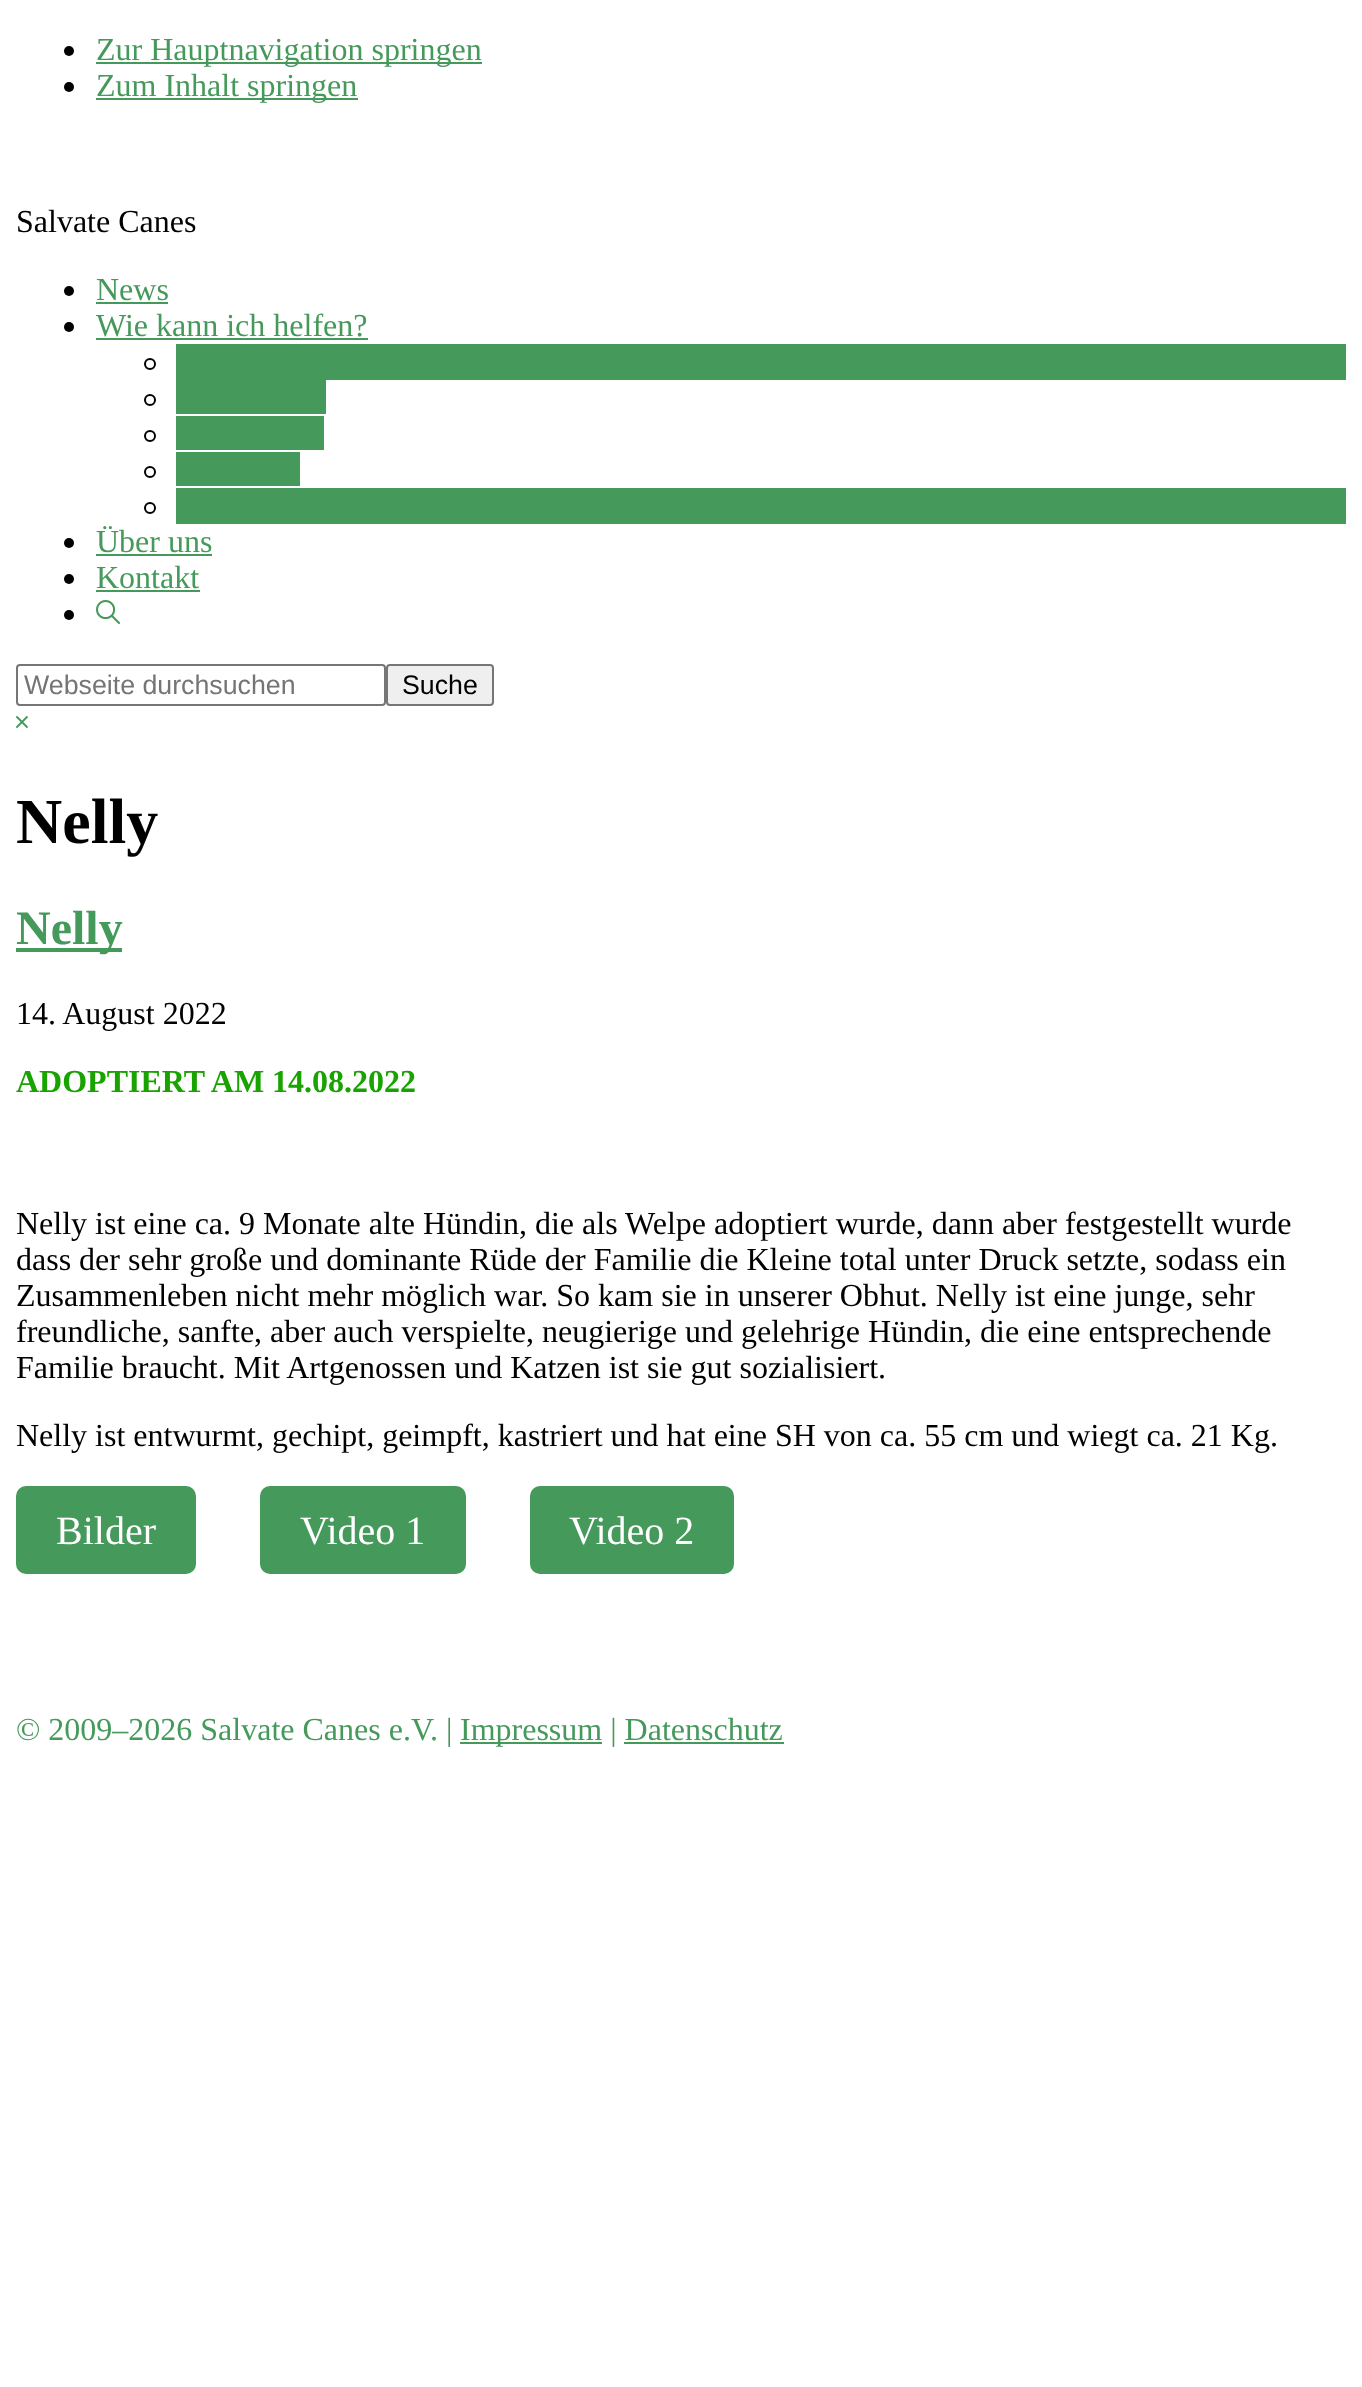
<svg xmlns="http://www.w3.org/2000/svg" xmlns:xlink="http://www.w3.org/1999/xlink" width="1362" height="2387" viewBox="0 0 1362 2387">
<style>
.cls-1{font:32px Liberation Serif;fill:#45995a}
.cls-2{font:32px Liberation Serif;fill:#000000}
.cls-3{font:26.75px Liberation Sans;fill:#757575}
.cls-4{font:26.75px Liberation Sans;fill:#000000}
.cls-5{font:bold 64px Liberation Serif;fill:#000000}
.cls-6{font:bold 48px Liberation Serif;fill:#45995a}
.cls-7{font:bold 32px Liberation Serif;fill:#19a300}
.cls-8{font:40px Liberation Serif;fill:#ffffff}
</style>
<rect width="100%" height="100%" fill="#ffffff"/>
<circle fill="#000000" cx="69" cy="51" r="5"/>
<rect fill="#45995a" x="96" y="62" width="386" height="2"/>
<circle fill="#000000" cx="69" cy="87" r="5"/>
<rect fill="#45995a" x="96" y="98" width="262" height="2"/>
<circle fill="#000000" cx="69" cy="291" r="5"/>
<rect fill="#45995a" x="96" y="302" width="72" height="2"/>
<circle fill="#000000" cx="69" cy="327" r="5"/>
<rect fill="#45995a" x="96" y="338" width="272" height="2"/>
<rect fill="#45995a" x="176" y="344" width="1170" height="36"/>
<circle fill="none" stroke="#000000" stroke-width="2" cx="150" cy="364" r="5"/>
<circle fill="none" stroke="#000000" stroke-width="2" cx="150" cy="400" r="5"/>
<rect fill="#45995a" x="176" y="380" width="150" height="34"/>
<circle fill="none" stroke="#000000" stroke-width="2" cx="150" cy="436" r="5"/>
<rect fill="#45995a" x="176" y="416" width="148" height="34"/>
<circle fill="none" stroke="#000000" stroke-width="2" cx="150" cy="472" r="5"/>
<rect fill="#45995a" x="176" y="452" width="124" height="34"/>
<rect fill="#45995a" x="176" y="488" width="1170" height="36"/>
<circle fill="none" stroke="#000000" stroke-width="2" cx="150" cy="508" r="5"/>
<circle fill="#000000" cx="69" cy="543" r="5"/>
<rect fill="#45995a" x="96" y="554" width="116" height="2"/>
<circle fill="#000000" cx="69" cy="579" r="5"/>
<rect fill="#45995a" x="96" y="590" width="104" height="2"/>
<circle fill="#000000" cx="69" cy="615" r="5"/>
<image xlink:href="image0.png" x="96" y="600" width="24" height="24"/>
<rect fill="none" stroke="#767676" stroke-width="2" x="17" y="665" width="368" height="40" rx="3"/>
<rect fill="#efefef" stroke="#767676" stroke-width="2" x="387" y="665" width="106" height="40" rx="3"/>
<image xlink:href="image1.png" x="16" y="716" width="12" height="12"/>
<rect fill="#45995a" x="16" y="948" width="106" height="4"/>
<rect fill="#45995a" x="16" y="1486" width="180" height="88" rx="10"/>
<rect fill="#45995a" x="260" y="1486" width="206" height="88" rx="10"/>
<rect fill="#45995a" x="530" y="1486" width="204" height="88" rx="10"/>
<rect fill="#45995a" x="460" y="1742" width="142" height="2"/>
<rect fill="#45995a" x="624" y="1742" width="160" height="2"/>
<text class="cls-1"><tspan x="96" y="60">Zur Hauptnavigation springen</tspan><tspan x="96" y="96">Zum Inhalt springen</tspan></text>
<text class="cls-2" x="16" y="232">Salvate Canes</text>
<text class="cls-1"><tspan x="96" y="300">News</tspan><tspan x="96" y="336">Wie kann ich helfen?</tspan></text>
<text class="cls-1"><tspan x="96" y="552">Über uns</tspan><tspan x="96" y="588">Kontakt</tspan></text>
<text class="cls-3" x="24" y="694">Webseite durchsuchen</text>
<text class="cls-4" x="402" y="694">Suche</text>
<text class="cls-5" x="16" y="843">Nelly</text>
<text class="cls-6" x="16" y="944">Nelly</text>
<text class="cls-2" x="16" y="1024">14. August 2022</text>
<text class="cls-7" x="16" y="1092">ADOPTIERT AM 14.08.2022</text>
<text class="cls-2"><tspan x="16" y="1234">Nelly ist eine ca. 9 Monate alte Hündin, die als Welpe adoptiert wurde, dann aber festgestellt wurde</tspan><tspan x="16" y="1270">dass der sehr große und dominante Rüde der Familie die Kleine total unter Druck setzte, sodass ein</tspan><tspan x="16" y="1306">Zusammenleben nicht mehr möglich war. So kam sie in unserer Obhut. Nelly ist eine junge, sehr</tspan><tspan x="16" y="1342">freundliche, sanfte, aber auch verspielte, neugierige und gelehrige Hündin, die eine entsprechende</tspan><tspan x="16" y="1378">Familie braucht. Mit Artgenossen und Katzen ist sie gut sozialisiert.</tspan></text>
<text class="cls-2" x="16" y="1446">Nelly ist entwurmt, gechipt, geimpft, kastriert und hat eine SH von ca. 55 cm und wiegt ca. 21 Kg.</text>
<text class="cls-8" x="56" y="1544">Bilder</text>
<text class="cls-8" x="300" y="1544">Video 1</text>
<text class="cls-8" x="569" y="1544">Video 2</text>
<text class="cls-1" x="16" y="1740">© 2009–2026 Salvate Canes e.V. |</text>
<text class="cls-1" x="460" y="1740">Impressum | Datenschutz</text>
</svg>
